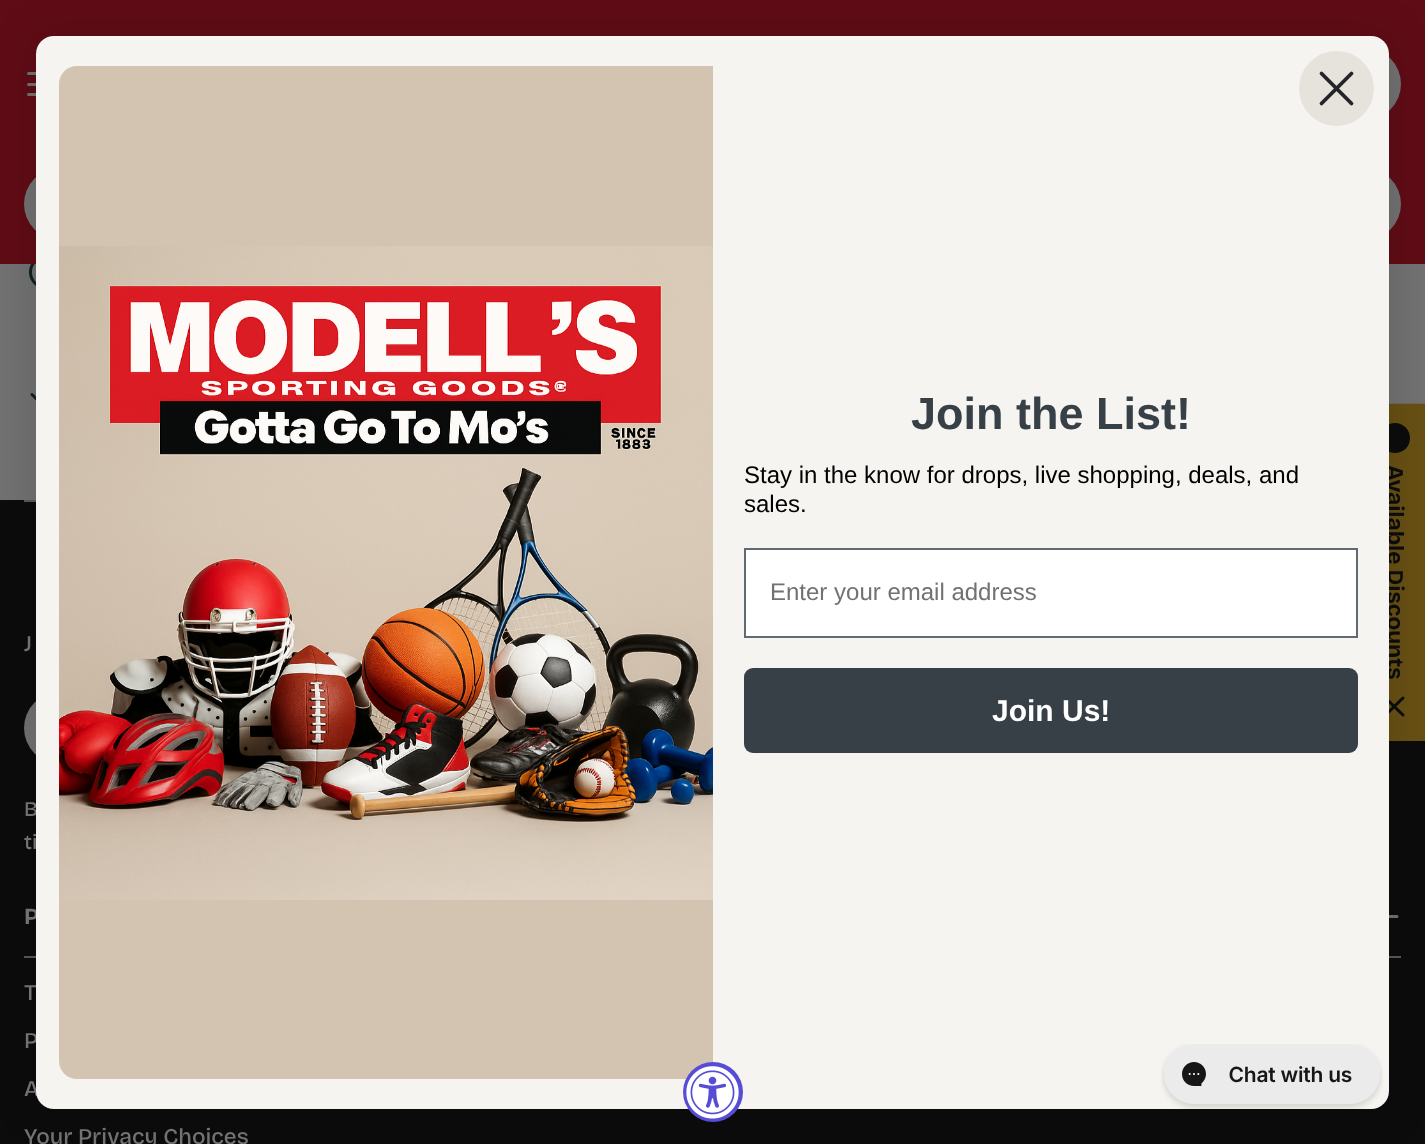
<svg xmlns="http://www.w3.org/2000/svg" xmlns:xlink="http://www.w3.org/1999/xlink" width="1425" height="1144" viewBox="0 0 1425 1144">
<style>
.cls-1{font:bold 22.5px 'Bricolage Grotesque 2';fill:#0c0c0c}
.cls-2{font:500 22.5px Bricolage Grotesque;fill:#727272}
.cls-3{font:500 21px 'Bricolage Grotesque 2';fill:#727272}
.cls-4{font:bold 23px Bricolage Grotesque;fill:#727272}
.cls-5{font:bold 30px Liberation Sans;fill:#ffffff}
.cls-6{font:24px Liberation Sans;fill:#727272}
.cls-7{font:24px Liberation Sans;fill:#000000}
.cls-8{font:bold 45px Liberation Sans;fill:#373f47}
</style>
<rect width="100%" height="100%" fill="#727272"/>
<rect fill="#0c0c0c" x="0" y="500" width="1425" height="644"/>
<path fill="#685014" d="M1365 732V413C1365 408 1369 404 1374 404H1425V741H1374C1369 741 1365 737 1365 732Z"/>
<path fill="none" stroke="#685014" stroke-width="1.5" d="M1366 732V412.5C1366 408 1369.5 404.5 1374 404.5H1424.5V740H1374C1369.5 740 1366 736.5 1366 732Z"/>
<path fill="#0c0c0c" d="M1410 438C1410 446.5 1403.5 453 1395 453C1386.5 453 1380 446.5 1380 438C1380 430 1386.5 423 1395 423C1403.5 423 1410 430 1410 438Z"/>
<path fill="none" stroke="#0c0c0c" stroke-width="3" stroke-linecap="round" stroke-linejoin="round" d="M1403 715L1385.5 698M1385.5 715L1403 698"/>
<rect fill="#600c16" x="0" y="0" width="1425" height="264"/>
<rect fill="#727272" x="27" y="83" width="30" height="3" rx="1.5"/>
<rect fill="#727272" x="27" y="72" width="30" height="3" rx="1.5"/>
<rect fill="#727272" x="27" y="93" width="30" height="3" rx="1.5"/>
<circle fill="#727272" cx="1365" cy="84" r="36"/>
<rect fill="#727272" x="24" y="168" width="1377" height="72" rx="36"/>
<image xlink:href="image1.png" x="29" y="264" width="7" height="22"/>
<path fill="none" stroke="#132121" stroke-width="3" stroke-linecap="round" stroke-linejoin="round" d="M59.5 385.5L41 403.5L32 394.5"/>
<rect fill="#5a5a5a" x="24" y="500" width="12" height="2"/>
<rect fill="#727272" x="24" y="692" width="555" height="72" rx="36"/>
<rect fill="#5a5a5a" x="24" y="956" width="1377" height="2"/>
<path fill="none" stroke="#727272" stroke-width="3" stroke-linecap="round" stroke-linejoin="round" d="M1381 916.5H1397M1381 916.5H1397"/>
<rect fill="#000000" fill-opacity="0.15" filter="blur(22.5px)" x="36" y="36" width="1353" height="1073" rx="18"/>
<text class="cls-1" x="1388" y="465" transform="rotate(90 1388 465)">Available Discounts</text>
<text class="cls-2" x="24" y="651">J</text>
<text class="cls-3"><tspan x="24" y="816">B</tspan><tspan x="24" y="849">ti</tspan></text>
<text class="cls-4" x="24" y="924">P</text>
<text class="cls-2" x="24" y="1000">T</text>
<text class="cls-2" x="24" y="1048">P</text>
<text class="cls-2" x="24" y="1096">A</text>
<rect fill="#f5f4f0" x="36" y="36" width="1353" height="1073" rx="18"/>
<circle fill="#e6e3dc" stroke="#e6e3dc" stroke-width="3.8" cx="1336.5" cy="88.5" r="35.5"/>
<path fill="none" stroke="#242527" stroke-width="3.8" stroke-linecap="round" stroke-linejoin="round" d="M1321.5 73.5L1351.5 103.5M1321.5 103.5L1351.5 73.5Z"/>
<rect fill="#373f47" x="744" y="668" width="614" height="85" rx="9"/>
<text class="cls-5" x="992" y="721">Join Us!</text>
<rect fill="#ffffff" stroke="#606a72" stroke-width="2" x="745" y="549" width="612" height="88"/>
<text class="cls-6" x="770" y="600">Enter your email address</text>
<text class="cls-7" x="744" y="512">sales.</text>
<text class="cls-7" x="744" y="483">Stay in the know for drops, live shopping, deals, and</text>
<text class="cls-8" x="911" y="429">Join the List!</text>
<path fill="#d3c4b1" d="M77 66H713V1079H77C67 1079 59 1071 59 1061V84C59 74 67 66 77 66Z"/>
<image xlink:href="image0.png" x="59" y="246" width="654" height="654"/>
<text class="cls-2" x="24" y="1144">Your Privacy Choices</text>
<circle fill="#574cd5" cx="713" cy="1092" r="30"/>
<image xlink:href="image2.png" x="686" y="1066" width="53" height="53"/>
<image xlink:href="image3.png" x="1161" y="1044" width="222" height="65"/>
</svg>
